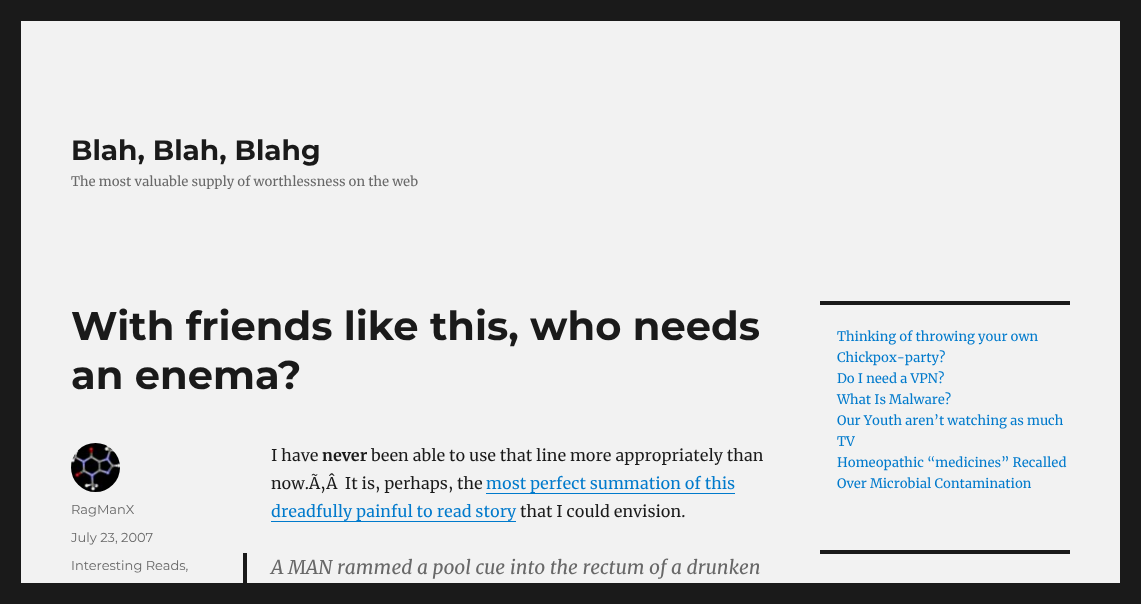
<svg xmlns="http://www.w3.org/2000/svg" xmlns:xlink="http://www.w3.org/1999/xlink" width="1141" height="604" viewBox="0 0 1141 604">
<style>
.cls-1{font:100 28px Montserrat;fill:#1a1a1a}
.cls-2{font:13px Merriweather;fill:#686868}
.cls-3{font:100 40px Montserrat;fill:#1a1a1a}
.cls-4{font:100 13px 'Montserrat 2';fill:#686868}
.cls-5{font:16px Merriweather;fill:#1a1a1a}
.cls-6{font:bold 16px Merriweather;fill:#1a1a1a}
.cls-7{font:16px Merriweather;fill:#007acc}
.cls-8{font:italic 19px Merriweather;fill:#686868}
.cls-9{font:13px Merriweather;fill:#007acc}
</style>
<defs>
<clipPath id="clip1"><rect x="71" y="133" width="347" height="56"/></clipPath>
</defs>
<rect width="100%" height="100%" fill="#1a1a1a"/>
<rect fill="#f2f2f2" x="21" y="21" width="1099" height="562"/>
<image xlink:href="image0.png" x="71" y="443" width="49" height="49"/>
<rect fill="#007acc" x="486" y="493" width="249" height="1"/>
<rect fill="#007acc" x="271" y="521" width="245" height="1"/>
<rect fill="#1a1a1a" x="243" y="553" width="4" height="30"/>
<rect fill="#1a1a1a" x="820" y="301" width="250" height="4"/>
<rect fill="#1a1a1a" x="820" y="550" width="250" height="4"/>
<text class="cls-1" x="71" y="160">Blah, Blah, Blahg</text>
<g clip-path="url(#clip1)">
<text class="cls-2" x="71" y="186">The most valuable supply of worthlessness on the web</text>
</g>
<text class="cls-3"><tspan x="71" y="340">With friends like this, who needs</tspan><tspan x="71" y="389">an enema?</tspan></text>
<text class="cls-4" x="71" y="514">RagManX</text>
<text class="cls-4" x="71" y="542">July 23, 2007</text>
<text class="cls-4" x="71" y="570">Interesting Reads,</text>
<text class="cls-5" x="271" y="461">I have</text>
<text class="cls-6" x="322" y="461">never</text>
<text class="cls-5" x="371" y="461">been able to use that line more appropriately than</text>
<text class="cls-5" xml:space="preserve" x="271" y="489">now.Ã‚Â  It is, perhaps, the</text>
<text class="cls-7" x="486" y="489">most perfect summation of this</text>
<text class="cls-7" x="271" y="517">dreadfully painful to read story</text>
<text class="cls-5" x="520" y="517">that I could envision.</text>
<text class="cls-8" x="271" y="574">A MAN rammed a pool cue into the rectum of a drunken</text>
<text class="cls-9"><tspan x="837" y="341">Thinking of throwing your own</tspan><tspan x="837" y="362">Chickpox-party?</tspan><tspan x="837" y="383">Do I need a VPN?</tspan><tspan x="837" y="404">What Is Malware?</tspan><tspan x="837" y="425">Our Youth aren’t watching as much</tspan><tspan x="837" y="446">TV</tspan><tspan x="837" y="467">Homeopathic “medicines” Recalled</tspan><tspan x="837" y="488">Over Microbial Contamination</tspan></text>
</svg>
